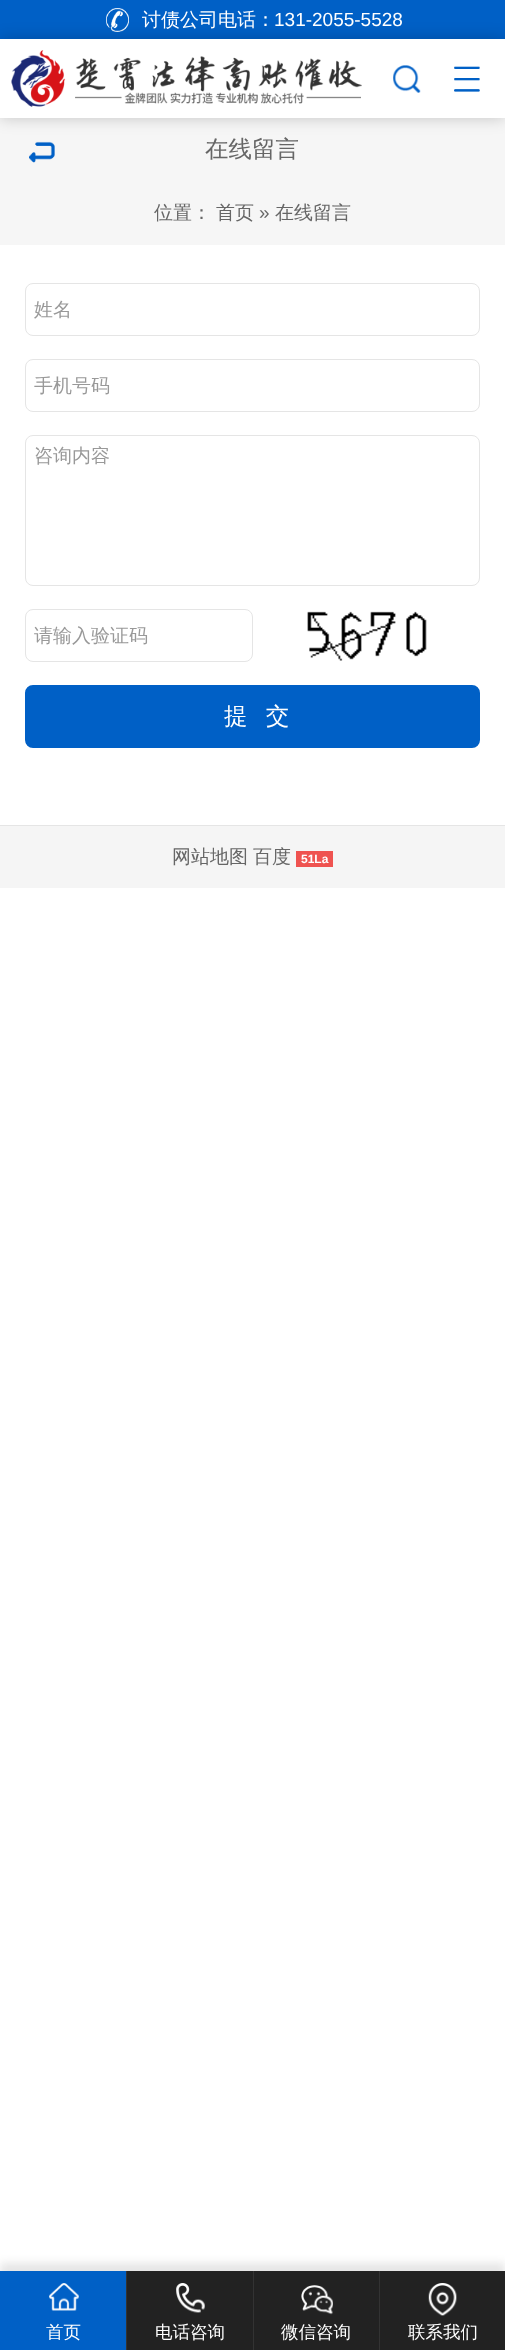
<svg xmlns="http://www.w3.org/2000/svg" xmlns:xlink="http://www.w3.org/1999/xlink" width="505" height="2350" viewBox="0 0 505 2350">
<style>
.cls-1{font:500 19px WenQuanYi Zen Hei;fill:#ffffff}
.cls-2{font:19px Liberation Sans;fill:#ffffff}
.cls-3{font:500 23.5px WenQuanYi Zen Hei;fill:#666666}
.cls-4{font:500 19px WenQuanYi Zen Hei;fill:#666666}
.cls-5{font:19px Liberation Sans;fill:#666666}
.cls-6{font:500 19px WenQuanYi Zen Hei;fill:#999999}
.cls-7{font:500 23.5px WenQuanYi Zen Hei;fill:#ffffff}
.cls-8{font:bold 12px Liberation Sans;fill:#ffffff}
.cls-9{font:500 17.5px WenQuanYi Zen Hei;fill:#ffffff}
</style>
<defs>
<clipPath id="clip1"><path d="M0 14H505V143H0ZM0 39H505V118H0Z" clip-rule="evenodd"/></clipPath>
</defs>
<rect width="100%" height="100%" fill="#ffffff"/>
<rect fill="#0060c6" x="0" y="0" width="505" height="39"/>
<image xlink:href="image0.png" x="106" y="8" width="23" height="24"/>
<rect fill="#f6f6f6" x="0" y="118" width="505" height="127"/>
<image xlink:href="image4.png" x="29" y="141" width="26" height="22"/>
<g clip-path="url(#clip1)">
<rect fill="#000000" fill-opacity="0.2" filter="blur(8px)" x="0" y="39" width="505" height="79"/>
</g>
<image xlink:href="image1.png" x="11" y="50" width="351" height="57"/>
<image xlink:href="image2.png" x="393" y="65" width="28" height="28"/>
<image xlink:href="image3.png" x="454" y="66" width="26" height="26"/>
<rect fill="none" stroke="#e5e5e5" x="25.5" y="283.5" width="454" height="52" rx="7.5"/>
<rect fill="none" stroke="#e5e5e5" x="25.5" y="359.5" width="454" height="52" rx="7.5"/>
<rect fill="none" stroke="#e5e5e5" x="25.5" y="435.5" width="454" height="150" rx="7.5"/>
<rect fill="none" stroke="#e5e5e5" x="25.5" y="609.5" width="227" height="52" rx="7.5"/>
<image xlink:href="image5.png" x="307" y="611" width="120" height="50"/>
<rect fill="#0060c6" stroke="#0060c6" stroke-width="3" x="26.5" y="686.5" width="452" height="60" rx="6.5"/>
<rect fill="#f5f5f5" x="0" y="826" width="505" height="62"/>
<rect fill="#e5e5e5" x="0" y="825" width="505" height="1"/>
<rect fill="#ef5350" x="296" y="851" width="37" height="16"/>
<rect fill="#000000" fill-opacity="0.1" filter="blur(4px)" x="0" y="2263" width="505" height="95"/>
<rect fill="#222222" x="127" y="2271" width="378" height="79"/>
<rect fill="#0060c6" x="0" y="2271" width="126" height="79"/>
<image xlink:href="image6.png" x="49" y="2283" width="30" height="28"/>
<rect fill="#333333" x="126" y="2271" width="1" height="79"/>
<image xlink:href="image7.png" x="176" y="2283" width="29" height="30"/>
<rect fill="#333333" x="253" y="2271" width="1" height="79"/>
<image xlink:href="image8.png" x="301" y="2285" width="32" height="30"/>
<rect fill="#333333" x="379" y="2271" width="1" height="79"/>
<image xlink:href="image9.png" x="428" y="2283" width="29" height="33"/>
<text class="cls-1" x="142" y="26">讨债公司电话：</text>
<text class="cls-2" x="274" y="26">131-2055-5528</text>
<text class="cls-3" x="205" y="157">在线留言</text>
<text class="cls-4" x="154" y="219">位置：</text>
<text class="cls-4" x="216" y="219">首页</text>
<text class="cls-5" x="259" y="219">»</text>
<text class="cls-4" x="275" y="219">在线留言</text>
<text class="cls-6" x="34" y="316">姓名</text>
<text class="cls-6" x="34" y="392">手机号码</text>
<text class="cls-6" x="34" y="462">咨询内容</text>
<text class="cls-6" x="34" y="642">请输入验证码</text>
<text class="cls-7" xml:space="preserve" x="224" y="724" word-spacing="-1">提   交</text>
<text class="cls-4" x="172" y="863">网站地图</text>
<text class="cls-4" x="253" y="863">百度</text>
<text class="cls-8" x="301" y="863">51La</text>
<text class="cls-9" x="46" y="2338">首页</text>
<text class="cls-9" x="155" y="2338">电话咨询</text>
<text class="cls-9" x="281" y="2338">微信咨询</text>
<text class="cls-9" x="408" y="2338">联系我们</text>
</svg>
